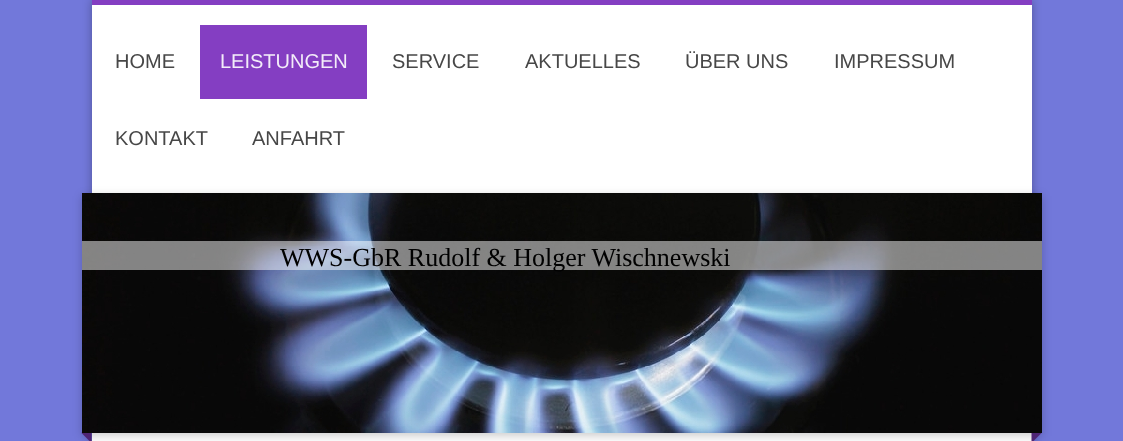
<svg xmlns="http://www.w3.org/2000/svg" xmlns:xlink="http://www.w3.org/1999/xlink" width="1123" height="441" viewBox="0 0 1123 441">
<style>
.cls-1{font:20px Liberation Sans;fill:#474747}
.cls-2{font:20px Liberation Sans;fill:#f3ecf9}
.cls-3{font:26px Liberation Serif;fill:#000000}
</style>
<rect width="100%" height="100%" fill="#7278da"/>
<rect fill="#000000" fill-opacity="0.3" filter="blur(5px)" x="92" y="0" width="940" height="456"/>
<rect fill="#ffffff" x="92" y="5" width="940" height="436"/>
<rect fill="#843ec2" x="92" y="0" width="940" height="5"/>
<rect fill="#843ec2" x="200" y="25" width="167" height="74"/>
<rect fill="#000000" fill-opacity="0.2" filter="blur(5px)" x="82" y="196" width="960" height="240"/>
<path fill="#4f2575" d="M91.5 423V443L81.5 433Z"/>
<path fill="#4f2575" d="M1031.5 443V423L1041.5 433Z"/>
<image xlink:href="image0.png" x="82" y="193" width="960" height="240"/>
<rect fill="#ffffff" fill-opacity="0.5" x="82" y="241" width="960" height="29"/>
<text class="cls-1" x="115" y="68">HOME</text>
<text class="cls-2" x="220" y="68">LEISTUNGEN</text>
<text class="cls-1" x="392" y="68">SERVICE</text>
<text class="cls-1" x="525" y="68">AKTUELLES</text>
<text class="cls-1" x="685" y="68">ÜBER UNS</text>
<text class="cls-1" x="834" y="68">IMPRESSUM</text>
<text class="cls-1" x="115" y="145">KONTAKT</text>
<text class="cls-1" x="252" y="145">ANFAHRT</text>
<text class="cls-3" x="280" y="266">WWS-GbR Rudolf &amp; Holger Wischnewski</text>
</svg>
